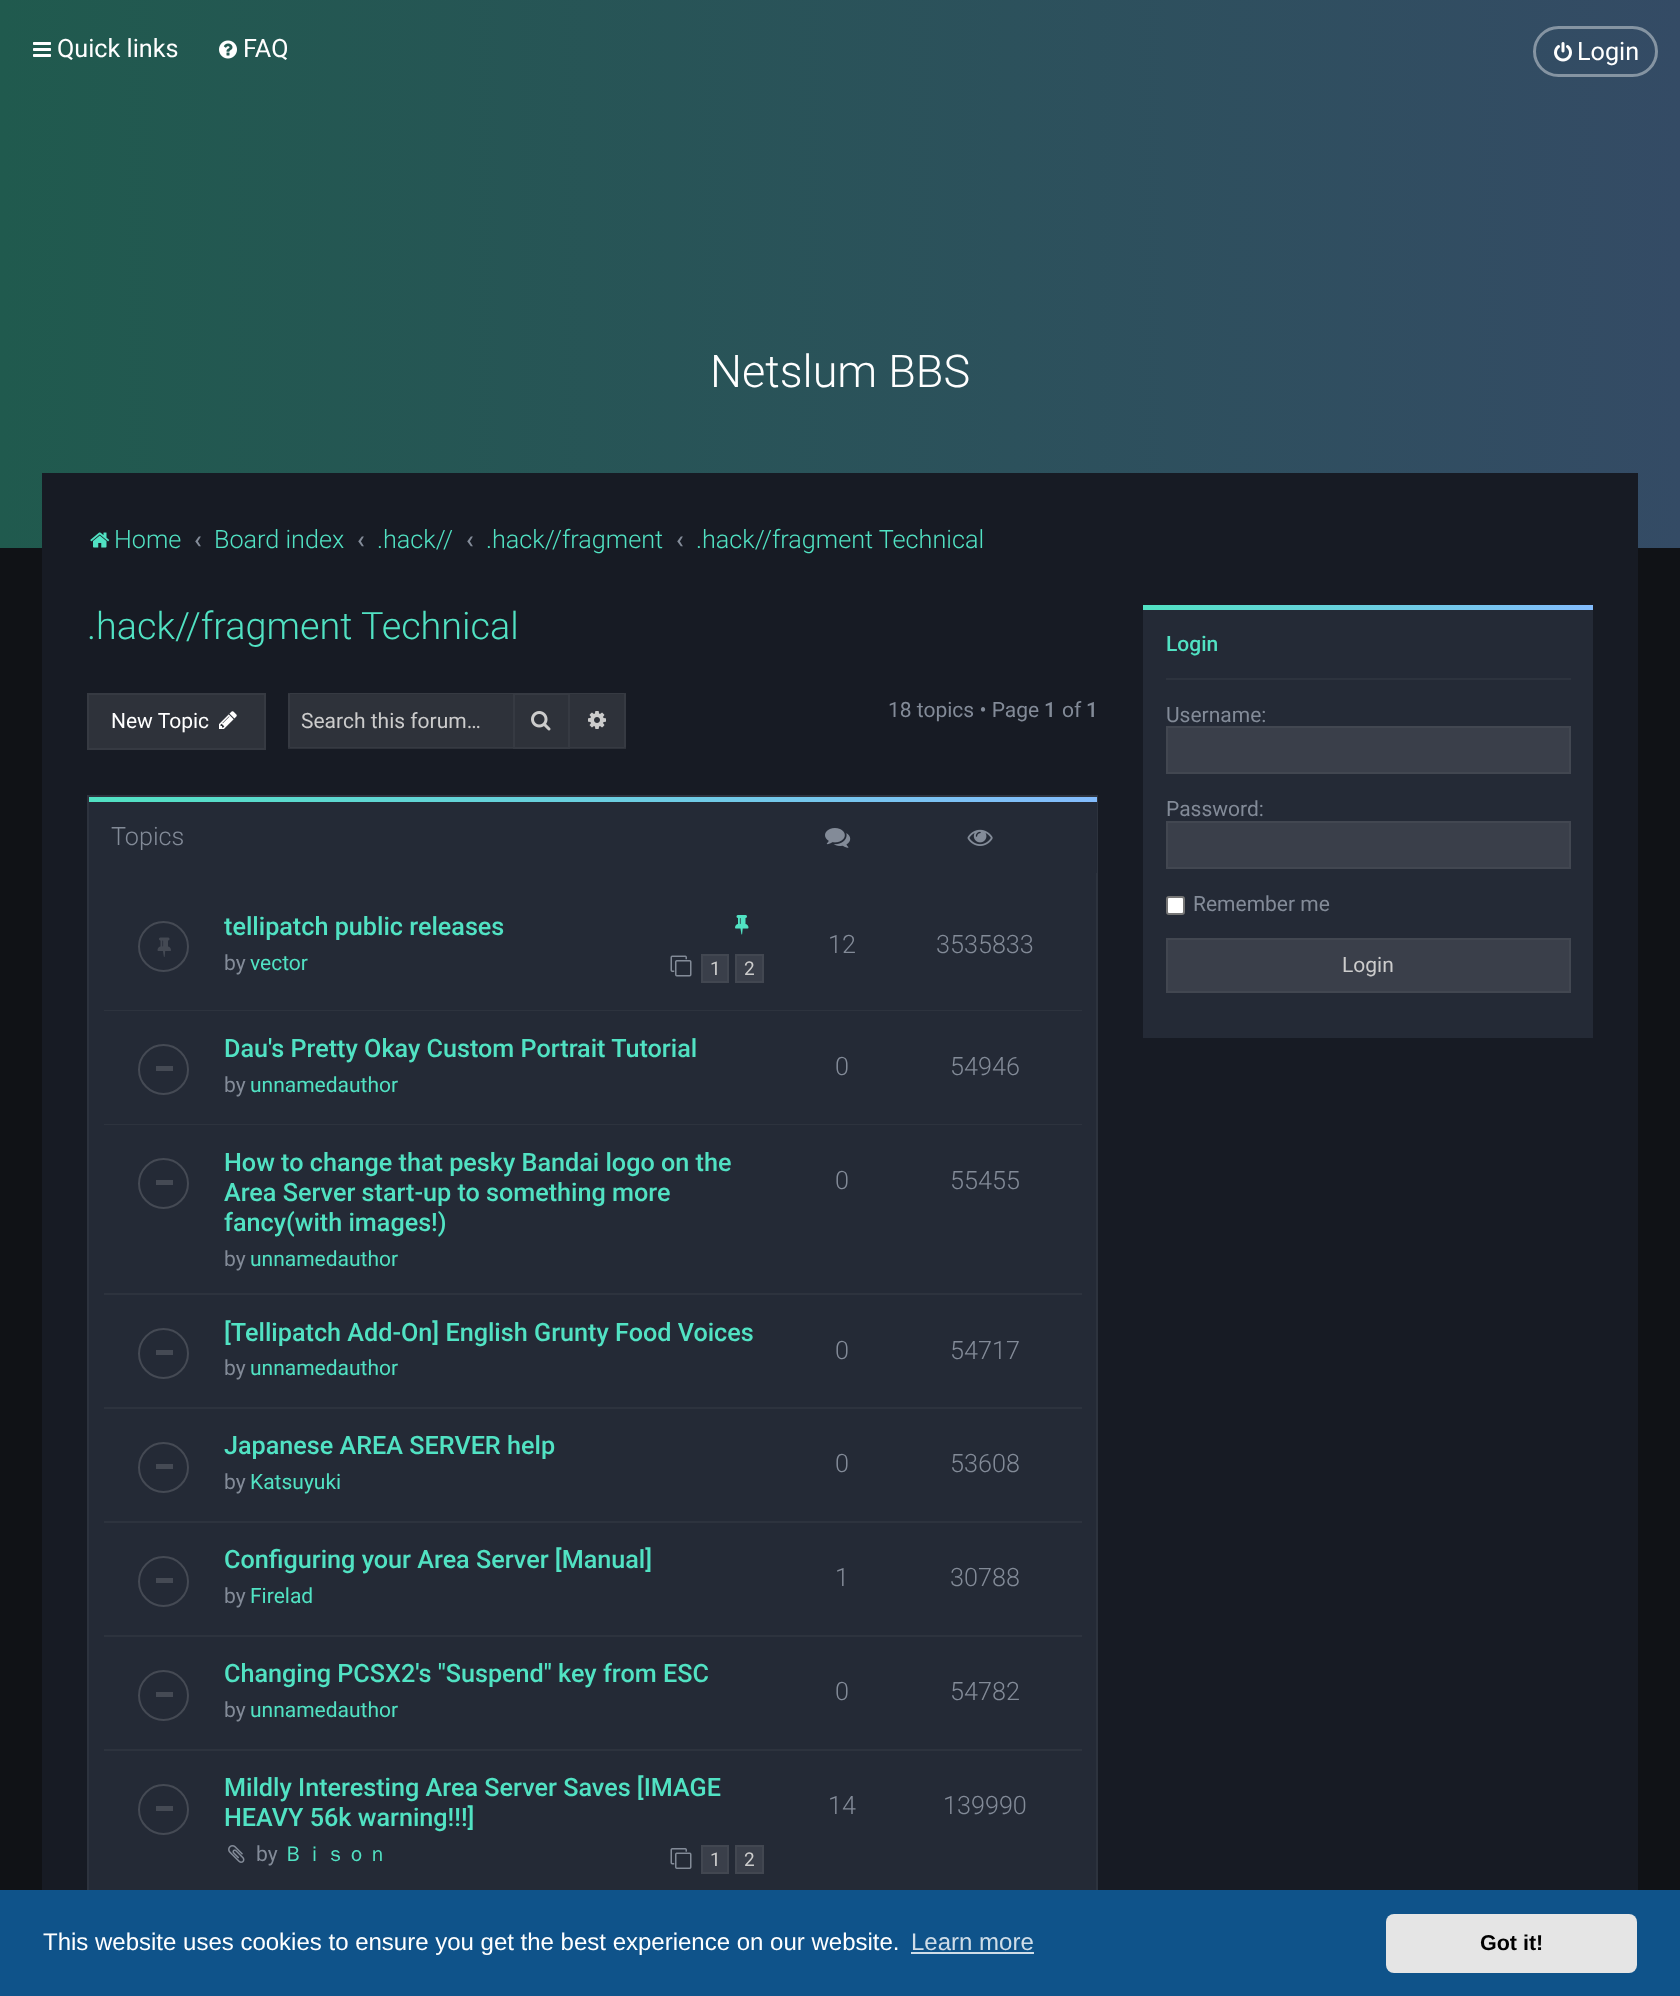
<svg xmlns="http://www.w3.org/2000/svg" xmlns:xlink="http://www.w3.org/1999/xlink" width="1680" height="1996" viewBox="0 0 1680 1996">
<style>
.cls-1{font:25.2px Roboto;fill:#ffffff}
.cls-2{font:300 45px Roboto;fill:#ffffff}
.cls-3{font:300 25.2px Roboto;fill:#51e2c3}
.cls-4{font:500 25.2px Roboto;fill:#838b98}
.cls-5{font:300 37.75px Roboto;fill:#51e2c3}
.cls-6{font:21px Roboto;fill:#ffffff}
.cls-7{font:21px Roboto;fill:#cccccc}
.cls-8{font:21px Roboto;fill:#838b98}
.cls-9{font:500 21px Roboto;fill:#838b98}
.cls-10{font:300 25.2px Roboto;fill:#838b98}
.cls-11{font:500 25.2px Roboto;fill:#51e2c3}
.cls-12{font:21px Roboto;fill:#51e2c3}
.cls-13{font:19px Roboto;fill:#cccccc}
.cls-14{font:500 21px WenQuanYi Zen Hei;fill:#51e2c3}
.cls-15{font:500 21px Roboto;fill:#51e2c3}
.cls-16{font:24px Liberation Sans;fill:#ffffff}
.cls-17{font:24px Liberation Sans;fill:#cfdde8}
.cls-18{font:bold 21.5px Liberation Sans;fill:#000000}
</style>
<defs>
<linearGradient id="g1" gradientUnits="userSpaceOnUse" x1="0" y1="274" x2="1680" y2="274"><stop offset="0" stop-color="#205a4e"/><stop offset="1" stop-color="#344b65"/></linearGradient>
<linearGradient id="g2" gradientUnits="userSpaceOnUse" x1="89" y1="799" x2="1097" y2="799"><stop offset="0" stop-color="#51e2c3"/><stop offset="1" stop-color="#83bcfd"/></linearGradient>
<linearGradient id="g3" gradientUnits="userSpaceOnUse" x1="1143" y1="607" x2="1593" y2="607"><stop offset="0" stop-color="#51e2c3"/><stop offset="1" stop-color="#83bcfd"/></linearGradient>
</defs>
<rect width="100%" height="100%" fill="#101216"/>
<rect fill="url(#g1)" x="0" y="0" width="1680" height="548"/>
<image xlink:href="image0.png" x="33" y="42" width="18" height="15"/>
<image xlink:href="image1.png" x="219" y="40" width="18" height="19"/>
<rect fill="none" stroke="#8594a2" stroke-width="3" x="1534.5" y="27.5" width="122" height="48" rx="24"/>
<image xlink:href="image2.png" x="1554" y="42" width="18" height="20"/>
<rect fill="#171b24" x="42" y="473" width="1596" height="1417"/>
<image xlink:href="image3.png" x="90" y="532" width="20" height="16"/>
<rect fill="#2e323a" stroke="#363a42" stroke-width="2" x="88" y="694" width="177" height="55"/>
<image xlink:href="image4.png" x="219" y="711" width="18" height="18"/>
<rect fill="#2e323a" x="288" y="693" width="225" height="56"/>
<path fill="#363a42" d="M288 693H513V694H290Z"/>
<path fill="#363a42" d="M513 748H288L290 747H513Z"/>
<path fill="#363a42" d="M288 748V693L290 694V747Z"/>
<rect fill="#2e323a" stroke="#363a42" stroke-width="2" x="514" y="694" width="55" height="54"/>
<image xlink:href="image5.png" x="531" y="711" width="20" height="20"/>
<rect fill="#2e323a" x="570" y="693" width="56" height="56"/>
<path fill="#363a42" d="M570 693H626L624 694H570Z"/>
<path fill="#363a42" d="M626 693V748L624 747V694Z"/>
<path fill="#363a42" d="M626 748H570V747H624Z"/>
<image xlink:href="image6.png" x="588" y="711" width="18" height="18"/>
<rect fill="#242a36" x="89" y="873" width="1007" height="1017"/>
<rect fill="none" stroke="#2d333e" stroke-width="2" x="88" y="796" width="1009" height="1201"/>
<rect fill="#242a36" x="89" y="802" width="1008" height="71"/>
<rect fill="url(#g2)" x="89" y="797" width="1008" height="5"/>
<image xlink:href="image7.png" x="825" y="828" width="26" height="20"/>
<image xlink:href="image8.png" x="967" y="829" width="26" height="17"/>
<rect fill="#2d333e" x="104" y="1010" width="978" height="1"/>
<circle fill="none" stroke="#454a54" stroke-width="2" cx="163.5" cy="946.5" r="24.5"/>
<image xlink:href="image9.png" x="157" y="937" width="14" height="20"/>
<image xlink:href="image10.png" x="735" y="915" width="14" height="20"/>
<image xlink:href="image11.png" x="670" y="955" width="22" height="22"/>
<rect fill="#3a3f4a" stroke="#424751" stroke-width="2" x="702" y="955" width="26" height="27"/>
<rect fill="#3a3f4a" stroke="#424751" stroke-width="2" x="736" y="955" width="27" height="27"/>
<rect fill="#2d333e" x="104" y="1124" width="978" height="1"/>
<circle fill="none" stroke="#454a54" stroke-width="2" cx="163.5" cy="1069.5" r="24.5"/>
<rect fill="#454a54" x="156" y="1066" width="17" height="5"/>
<rect fill="#2d333e" x="104" y="1293" width="978" height="2"/>
<circle fill="none" stroke="#454a54" stroke-width="2" cx="163.5" cy="1183.5" r="24.5"/>
<rect fill="#454a54" x="156" y="1180" width="17" height="5"/>
<rect fill="#2d333e" x="104" y="1407" width="978" height="2"/>
<circle fill="none" stroke="#454a54" stroke-width="2" cx="163.5" cy="1353.5" r="24.5"/>
<rect fill="#454a54" x="156" y="1350" width="17" height="5"/>
<rect fill="#2d333e" x="104" y="1521" width="978" height="2"/>
<circle fill="none" stroke="#454a54" stroke-width="2" cx="163.5" cy="1467.5" r="24.5"/>
<rect fill="#454a54" x="156" y="1464" width="17" height="5"/>
<rect fill="#2d333e" x="104" y="1635" width="978" height="2"/>
<circle fill="none" stroke="#454a54" stroke-width="2" cx="163.5" cy="1581.5" r="24.5"/>
<rect fill="#454a54" x="156" y="1578" width="17" height="5"/>
<rect fill="#2d333e" x="104" y="1749" width="978" height="2"/>
<circle fill="none" stroke="#454a54" stroke-width="2" cx="163.5" cy="1695.5" r="24.5"/>
<rect fill="#454a54" x="156" y="1692" width="17" height="5"/>
<circle fill="none" stroke="#454a54" stroke-width="2" cx="163.5" cy="1809.5" r="24.5"/>
<rect fill="#454a54" x="156" y="1806" width="17" height="5"/>
<image xlink:href="image12.png" x="228" y="1845" width="17" height="18"/>
<image xlink:href="image13.png" x="670" y="1848" width="22" height="21"/>
<rect fill="#3a3f4a" stroke="#424751" stroke-width="2" x="702" y="1846" width="26" height="27"/>
<rect fill="#3a3f4a" stroke="#424751" stroke-width="2" x="736" y="1846" width="27" height="27"/>
<rect fill="#242a36" x="1143" y="610" width="450" height="428"/>
<rect fill="url(#g3)" x="1143" y="605" width="450" height="5"/>
<rect fill="#2d333e" x="1166" y="678" width="405" height="2"/>
<rect fill="#3a3f4a" stroke="#424751" stroke-width="2" x="1167" y="727" width="403" height="46"/>
<rect fill="#3a3f4a" stroke="#424751" stroke-width="2" x="1167" y="822" width="403" height="46"/>
<rect fill="#ffffff" stroke="#767676" stroke-width="2" x="1167" y="897" width="17" height="17" rx="2"/>
<rect fill="#3a3f4a" stroke="#424751" stroke-width="2" x="1167" y="939" width="403" height="53"/>
<rect fill="#0f538a" x="0" y="1890" width="1680" height="106"/>
<rect fill="#cfdde8" x="911" y="1952" width="123" height="2"/>
<rect fill="#e5e5e5" x="1386" y="1914" width="251" height="59" rx="8"/>
<text class="cls-1" x="57" y="57">Quick links</text>
<text class="cls-1" x="243" y="57">FAQ</text>
<text class="cls-1" x="1577" y="60">Login</text>
<text class="cls-2" x="710" y="387">Netslum BBS</text>
<text class="cls-3" x="114" y="548">Home</text>
<text class="cls-4" x="194" y="548">‹</text>
<text class="cls-3" x="214" y="548">Board index</text>
<text class="cls-4" x="357" y="548">‹</text>
<text class="cls-3" x="377" y="548">.hack//</text>
<text class="cls-4" x="466" y="548">‹</text>
<text class="cls-3" x="486" y="548">.hack//fragment</text>
<text class="cls-4" x="676" y="548">‹</text>
<text class="cls-3" x="696" y="548">.hack//fragment Technical</text>
<text class="cls-5" x="87" y="639">.hack//fragment Technical</text>
<text class="cls-6" x="111" y="728">New Topic</text>
<text class="cls-7" x="301" y="728">Search this forum…</text>
<text class="cls-8" x="888" y="717">18 topics • Page</text>
<text class="cls-9" x="1044" y="717">1</text>
<text class="cls-8" x="1062" y="717">of</text>
<text class="cls-9" x="1086" y="717">1</text>
<text class="cls-10" x="111" y="845">Topics</text>
<text class="cls-11" x="224" y="935">tellipatch public releases</text>
<text class="cls-8" x="224" y="970">by</text>
<text class="cls-12" x="250" y="970">vector</text>
<text class="cls-13" x="710" y="975">1</text>
<text class="cls-13" x="744" y="975">2</text>
<text class="cls-10" x="828" y="953">12</text>
<text class="cls-10" x="936" y="953">3535833</text>
<text class="cls-11" x="224" y="1057">Dau's Pretty Okay Custom Portrait Tutorial</text>
<text class="cls-8" x="224" y="1092">by</text>
<text class="cls-12" x="250" y="1092">unnamedauthor</text>
<text class="cls-10" x="835" y="1075">0</text>
<text class="cls-10" x="950" y="1075">54946</text>
<text class="cls-11"><tspan x="224" y="1171">How to change that pesky Bandai logo on the</tspan><tspan x="224" y="1201">Area Server start-up to something more</tspan><tspan x="224" y="1231">fancy(with images!)</tspan></text>
<text class="cls-8" x="224" y="1266">by</text>
<text class="cls-12" x="250" y="1266">unnamedauthor</text>
<text class="cls-10" x="835" y="1189">0</text>
<text class="cls-10" x="950" y="1189">55455</text>
<text class="cls-11" x="224" y="1341">[Tellipatch Add-On] English Grunty Food Voices</text>
<text class="cls-8" x="224" y="1375">by</text>
<text class="cls-12" x="250" y="1375">unnamedauthor</text>
<text class="cls-10" x="835" y="1359">0</text>
<text class="cls-10" x="950" y="1359">54717</text>
<text class="cls-11" x="224" y="1454">Japanese AREA SERVER help</text>
<text class="cls-8" x="224" y="1489">by</text>
<text class="cls-12" x="250" y="1489">Katsuyuki</text>
<text class="cls-10" x="835" y="1472">0</text>
<text class="cls-10" x="950" y="1472">53608</text>
<text class="cls-11" x="224" y="1568">Configuring your Area Server [Manual]</text>
<text class="cls-8" x="224" y="1603">by</text>
<text class="cls-12" x="250" y="1603">Firelad</text>
<text class="cls-10" x="835" y="1586">1</text>
<text class="cls-10" x="950" y="1586">30788</text>
<text class="cls-11" x="224" y="1682">Changing PCSX2's "Suspend" key from ESC</text>
<text class="cls-8" x="224" y="1717">by</text>
<text class="cls-12" x="250" y="1717">unnamedauthor</text>
<text class="cls-10" x="835" y="1700">0</text>
<text class="cls-10" x="950" y="1700">54782</text>
<text class="cls-11"><tspan x="224" y="1796">Mildly Interesting Area Server Saves [IMAGE</tspan><tspan x="224" y="1826">HEAVY 56k warning!!!]</tspan></text>
<text class="cls-8" x="256" y="1861">by</text>
<text class="cls-14" x="283" y="1861">Ｂｉｓｏｎ</text>
<text class="cls-13" x="710" y="1866">1</text>
<text class="cls-13" x="744" y="1866">2</text>
<text class="cls-10" x="828" y="1814">14</text>
<text class="cls-10" x="943" y="1814">139990</text>
<text class="cls-15" x="1166" y="651">Login</text>
<text class="cls-8" x="1166" y="722">Username:</text>
<text class="cls-8" x="1166" y="816">Password:</text>
<text class="cls-8" x="1193" y="911">Remember me</text>
<text class="cls-7" x="1342" y="972">Login</text>
<text class="cls-16" x="43" y="1950">This website uses cookies to ensure you get the best experience on our website.</text>
<text class="cls-17" x="911" y="1950">Learn more</text>
<text class="cls-18" x="1480" y="1950">Got it!</text>
</svg>
